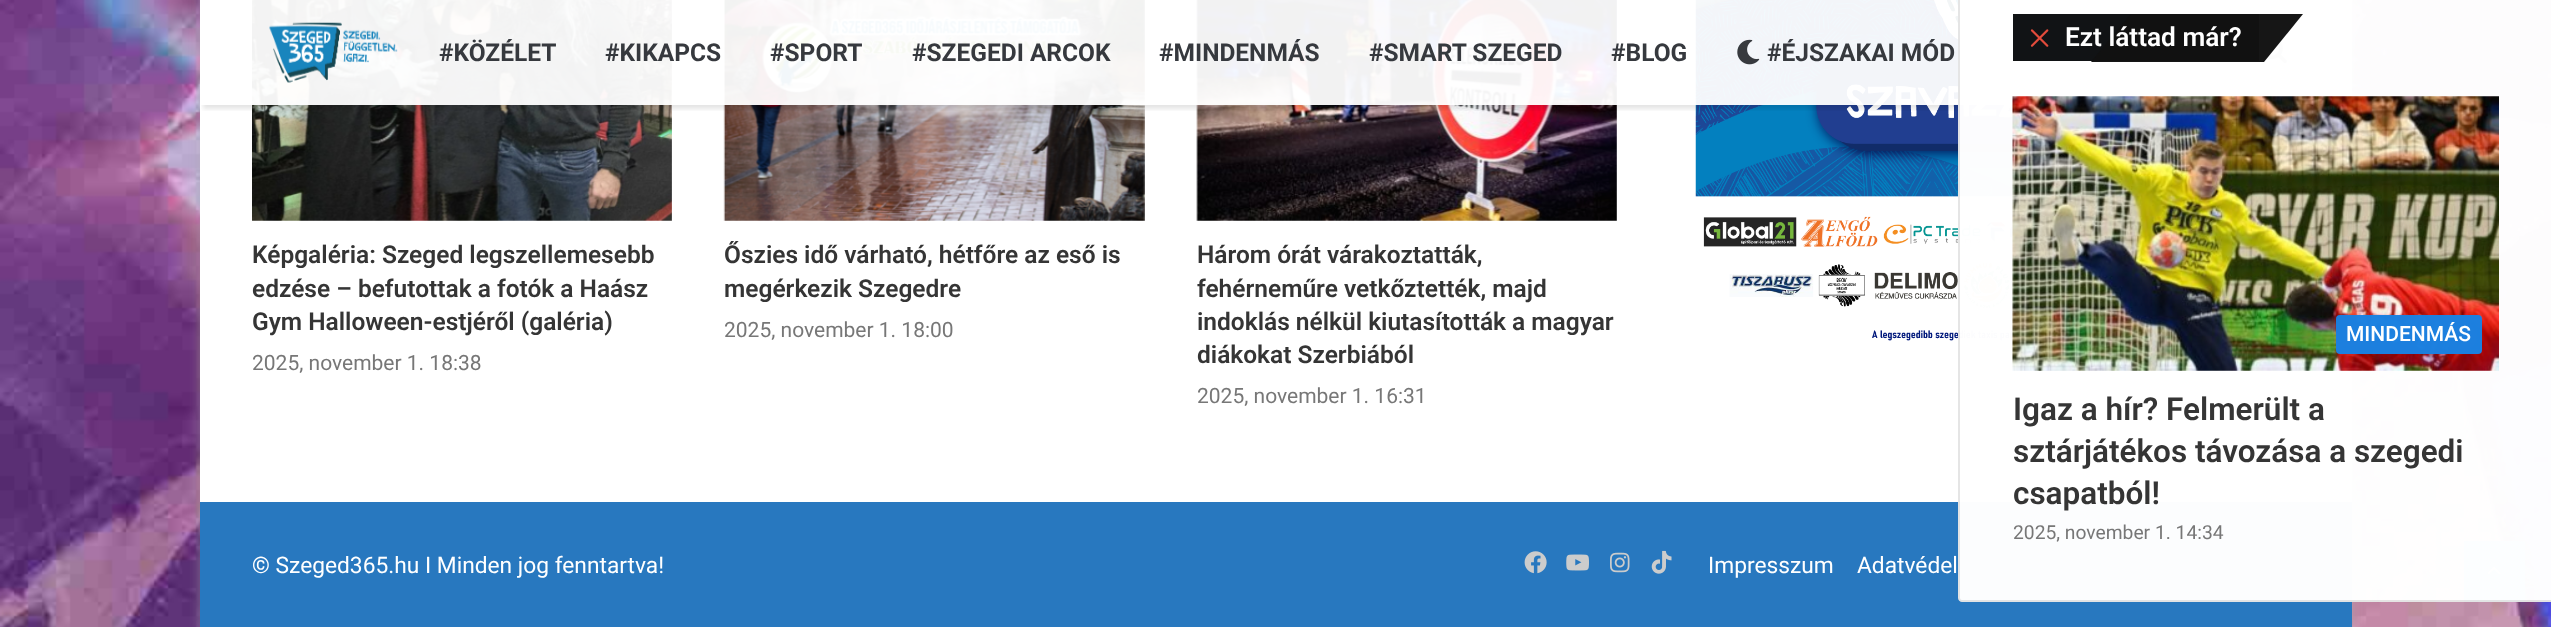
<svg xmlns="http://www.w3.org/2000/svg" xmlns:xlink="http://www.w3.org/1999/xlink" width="2551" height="627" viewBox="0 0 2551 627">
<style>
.cls-1{font:600 24.5px Roboto;fill:#353535}
.cls-2{font:21px Roboto;fill:#777777}
.cls-3{font:600 26.25px Roboto;fill:#ffffff}
.cls-4{font:500 21px Roboto;fill:#ffffff}
.cls-5{font:600 31.5px Roboto;fill:#353535}
.cls-6{font:19.25px Roboto;fill:#777777}
.cls-7{font:bold 24.5px Roboto;fill:#36393e}
.cls-8{font:22.75px Roboto;fill:#ffffff}
</style>
<defs>
<clipPath id="clip1"><rect x="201" y="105" width="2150" height="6"/></clipPath>
</defs>
<rect width="100%" height="100%" fill="#ffffff"/>
<image xlink:href="image0.png" x="0" y="0" width="2551" height="627"/>
<rect fill="#ababab" fill-opacity="0.5" filter="blur(6px)" x="200" y="-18" width="2152" height="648"/>
<rect fill="#ffffff" x="200" y="0" width="2152" height="502"/>
<image xlink:href="image1.png" x="1695" y="0" width="605" height="354"/>
<image xlink:href="image2.png" x="252" y="0" width="420" height="221"/>
<image xlink:href="image3.png" x="723" y="0" width="422" height="221"/>
<image xlink:href="image4.png" x="1196" y="0" width="421" height="221"/>
<g clip-path="url(#clip1)">
<rect fill="#000000" fill-opacity="0.1" filter="blur(2px)" x="203" y="11" width="2146" height="98"/>
</g>
<rect fill="#ffffff" fill-opacity="0.95" x="252" y="0" width="2048" height="105"/>
<image xlink:href="image9.png" x="2261" y="37" width="26" height="27"/>
<rect fill="#2878bf" x="200" y="502" width="2152" height="125"/>
<rect fill="#1a81e1" x="2464" y="541" width="61" height="61"/>
<image xlink:href="image14.png" x="2487" y="566" width="14" height="9"/>
<path fill="#ffffff" fill-opacity="0.99" d="M1962-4H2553V602H1962C1960 602 1958 600 1958 598V0C1958-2 1960-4 1962-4Z"/>
<path fill="none" stroke="#000000" stroke-opacity="0.1" stroke-width="2" d="M1962-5H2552V601H1962C1960.5 601 1959 599.5 1959 598V-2C1959-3.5 1960.5-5 1962-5Z"/>
<rect fill="#111315" x="2013" y="14" width="246" height="47"/>
<path fill="#111111" fill-opacity="0.98" d="M2131 14H2303L2264 62H2091Z"/>
<image xlink:href="image5.png" x="2030" y="29" width="19" height="18"/>
<image xlink:href="image6.png" x="2012" y="96" width="487" height="275"/>
<rect fill="#1a81e1" fill-opacity="0.99" x="2336" y="315" width="146" height="39" rx="4"/>
<image xlink:href="image7.png" x="269" y="22" width="129" height="61"/>
<image xlink:href="image8.png" x="1737" y="39" width="23" height="26"/>
<image xlink:href="image10.png" x="1524" y="551" width="23" height="23"/>
<image xlink:href="image11.png" x="1566" y="554" width="23" height="17"/>
<image xlink:href="image12.png" x="1610" y="552" width="20" height="21"/>
<image xlink:href="image13.png" x="1651" y="550" width="21" height="24"/>
<text class="cls-1"><tspan x="252" y="263">Képgaléria: Szeged legszellemesebb</tspan><tspan x="252" y="297">edzése – befutottak a fotók a Haász</tspan><tspan x="252" y="330">Gym Halloween-estjéről (galéria)</tspan></text>
<text class="cls-2" x="252" y="370">2025, november 1. 18:38</text>
<text class="cls-1"><tspan x="724" y="263">Őszies idő várható, hétfőre az eső is</tspan><tspan x="724" y="297">megérkezik Szegedre</tspan></text>
<text class="cls-2" x="724" y="337">2025, november 1. 18:00</text>
<text class="cls-1"><tspan x="1197" y="263">Három órát várakoztatták,</tspan><tspan x="1197" y="297">fehérneműre vetkőztették, majd</tspan><tspan x="1197" y="330">indoklás nélkül kiutasították a magyar</tspan><tspan x="1197" y="363">diákokat Szerbiából</tspan></text>
<text class="cls-2" x="1197" y="403">2025, november 1. 16:31</text>
<text class="cls-3" x="2065" y="46">Ezt láttad már?</text>
<text class="cls-4" x="2346" y="341">MINDENMÁS</text>
<text class="cls-5"><tspan x="2013" y="420">Igaz a hír? Felmerült a</tspan><tspan x="2013" y="462">sztárjátékos távozása a szegedi</tspan><tspan x="2013" y="504">csapatból!</tspan></text>
<text class="cls-6" x="2013" y="539">2025, november 1. 14:34</text>
<text class="cls-7" x="439" y="61">#KÖZÉLET</text>
<text class="cls-7" x="605" y="61">#KIKAPCS</text>
<text class="cls-7" x="770" y="61">#SPORT</text>
<text class="cls-7" x="912" y="61">#SZEGEDI ARCOK</text>
<text class="cls-7" x="1159" y="61">#MINDENMÁS</text>
<text class="cls-7" x="1369" y="61">#SMART SZEGED</text>
<text class="cls-7" x="1611" y="61">#BLOG</text>
<text class="cls-7" x="1767" y="61">#ÉJSZAKAI MÓD</text>
<text class="cls-8" x="252" y="573">© Szeged365.hu I Minden jog fenntartva!</text>
<text class="cls-8" x="1708" y="573">Impresszum</text>
<text class="cls-8" x="1857" y="573">Adatvédel</text>
</svg>
